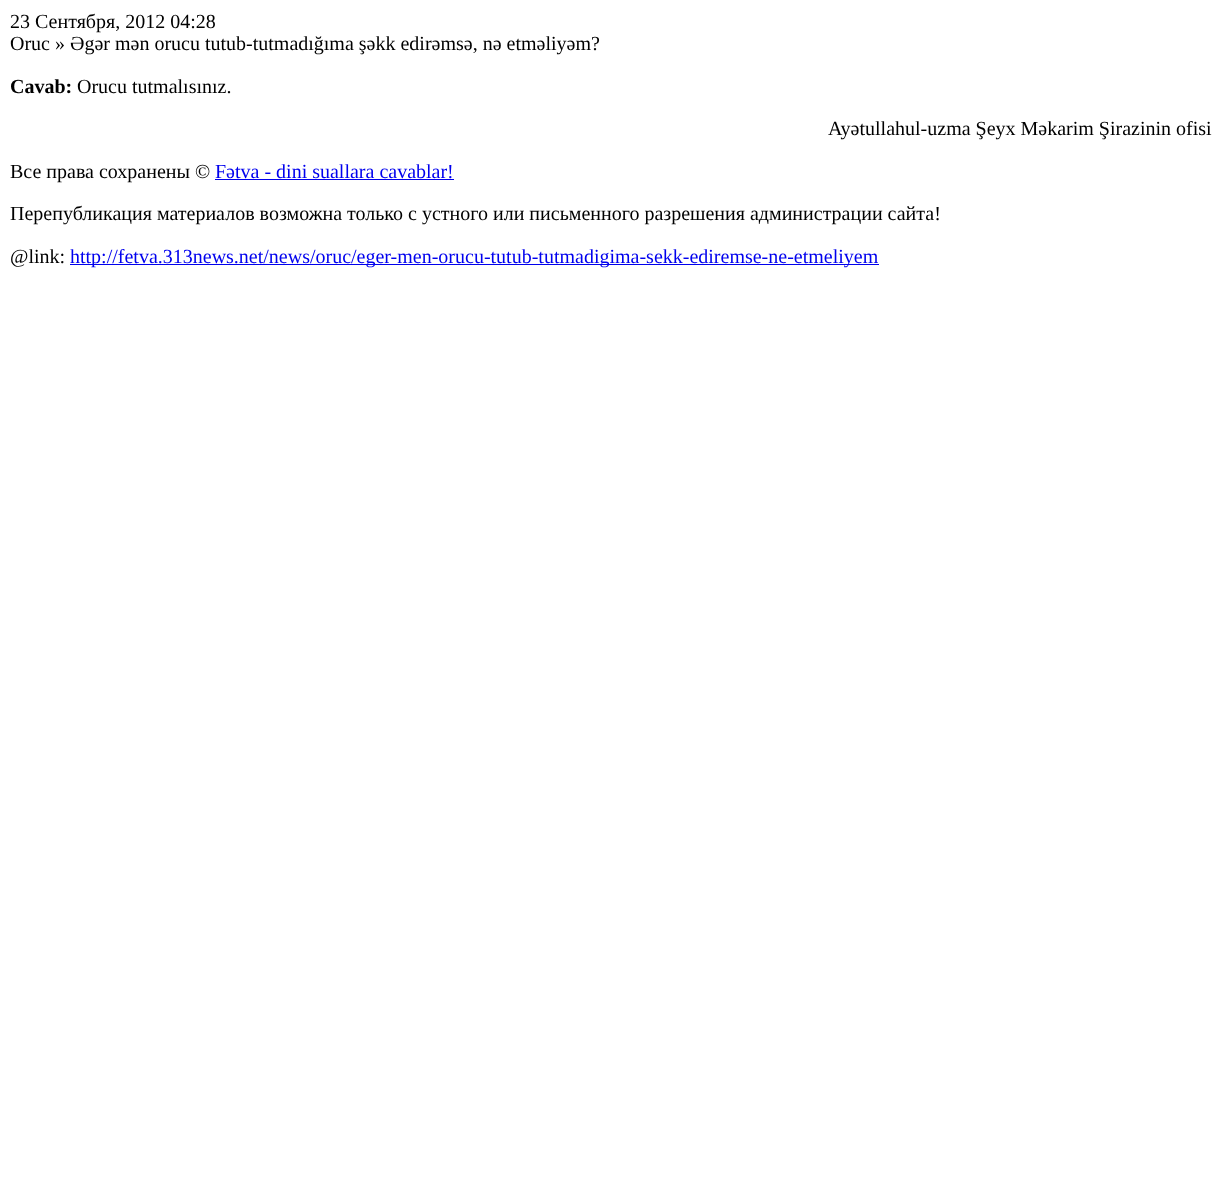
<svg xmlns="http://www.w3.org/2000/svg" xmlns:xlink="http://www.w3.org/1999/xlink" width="1221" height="1191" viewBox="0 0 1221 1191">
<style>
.cls-1{font:20px Liberation Serif;fill:#000000}
.cls-2{font:bold 20px Liberation Serif;fill:#000000}
.cls-3{font:20px Liberation Serif;fill:#0000ee}
</style>
<rect width="100%" height="100%" fill="#ffffff"/>
<rect fill="#0000ee" x="215" y="179" width="239" height="1"/>
<rect fill="#0000ee" x="70" y="264" width="809" height="1"/>
<text class="cls-1"><tspan x="10" y="28">23 Сентября, 2012 04:28</tspan><tspan x="10" y="50">Oruc » Əgər mən orucu tutub-tutmadığıma şəkk edirəmsə, nə etməliyəm?</tspan></text>
<text class="cls-2" x="10" y="93">Cavab:</text>
<text class="cls-1" x="77" y="93">Orucu tutmalısınız.</text>
<text class="cls-1" x="828" y="135">Ayətullahul-uzma Şeyx Məkarim Şirazinin ofisi</text>
<text class="cls-1" x="10" y="178">Все права сохранены ©</text>
<text class="cls-3" x="215" y="178">Fətva - dini suallara cavablar!</text>
<text class="cls-1" x="10" y="220">Перепубликация материалов возможна только с устного или письменного разрешения администрации сайта!</text>
<text class="cls-1" x="10" y="263">@link:</text>
<text class="cls-3" x="70" y="263">http://fetva.313news.net/news/oruc/eger-men-orucu-tutub-tutmadigima-sekk-ediremse-ne-etmeliyem</text>
</svg>
